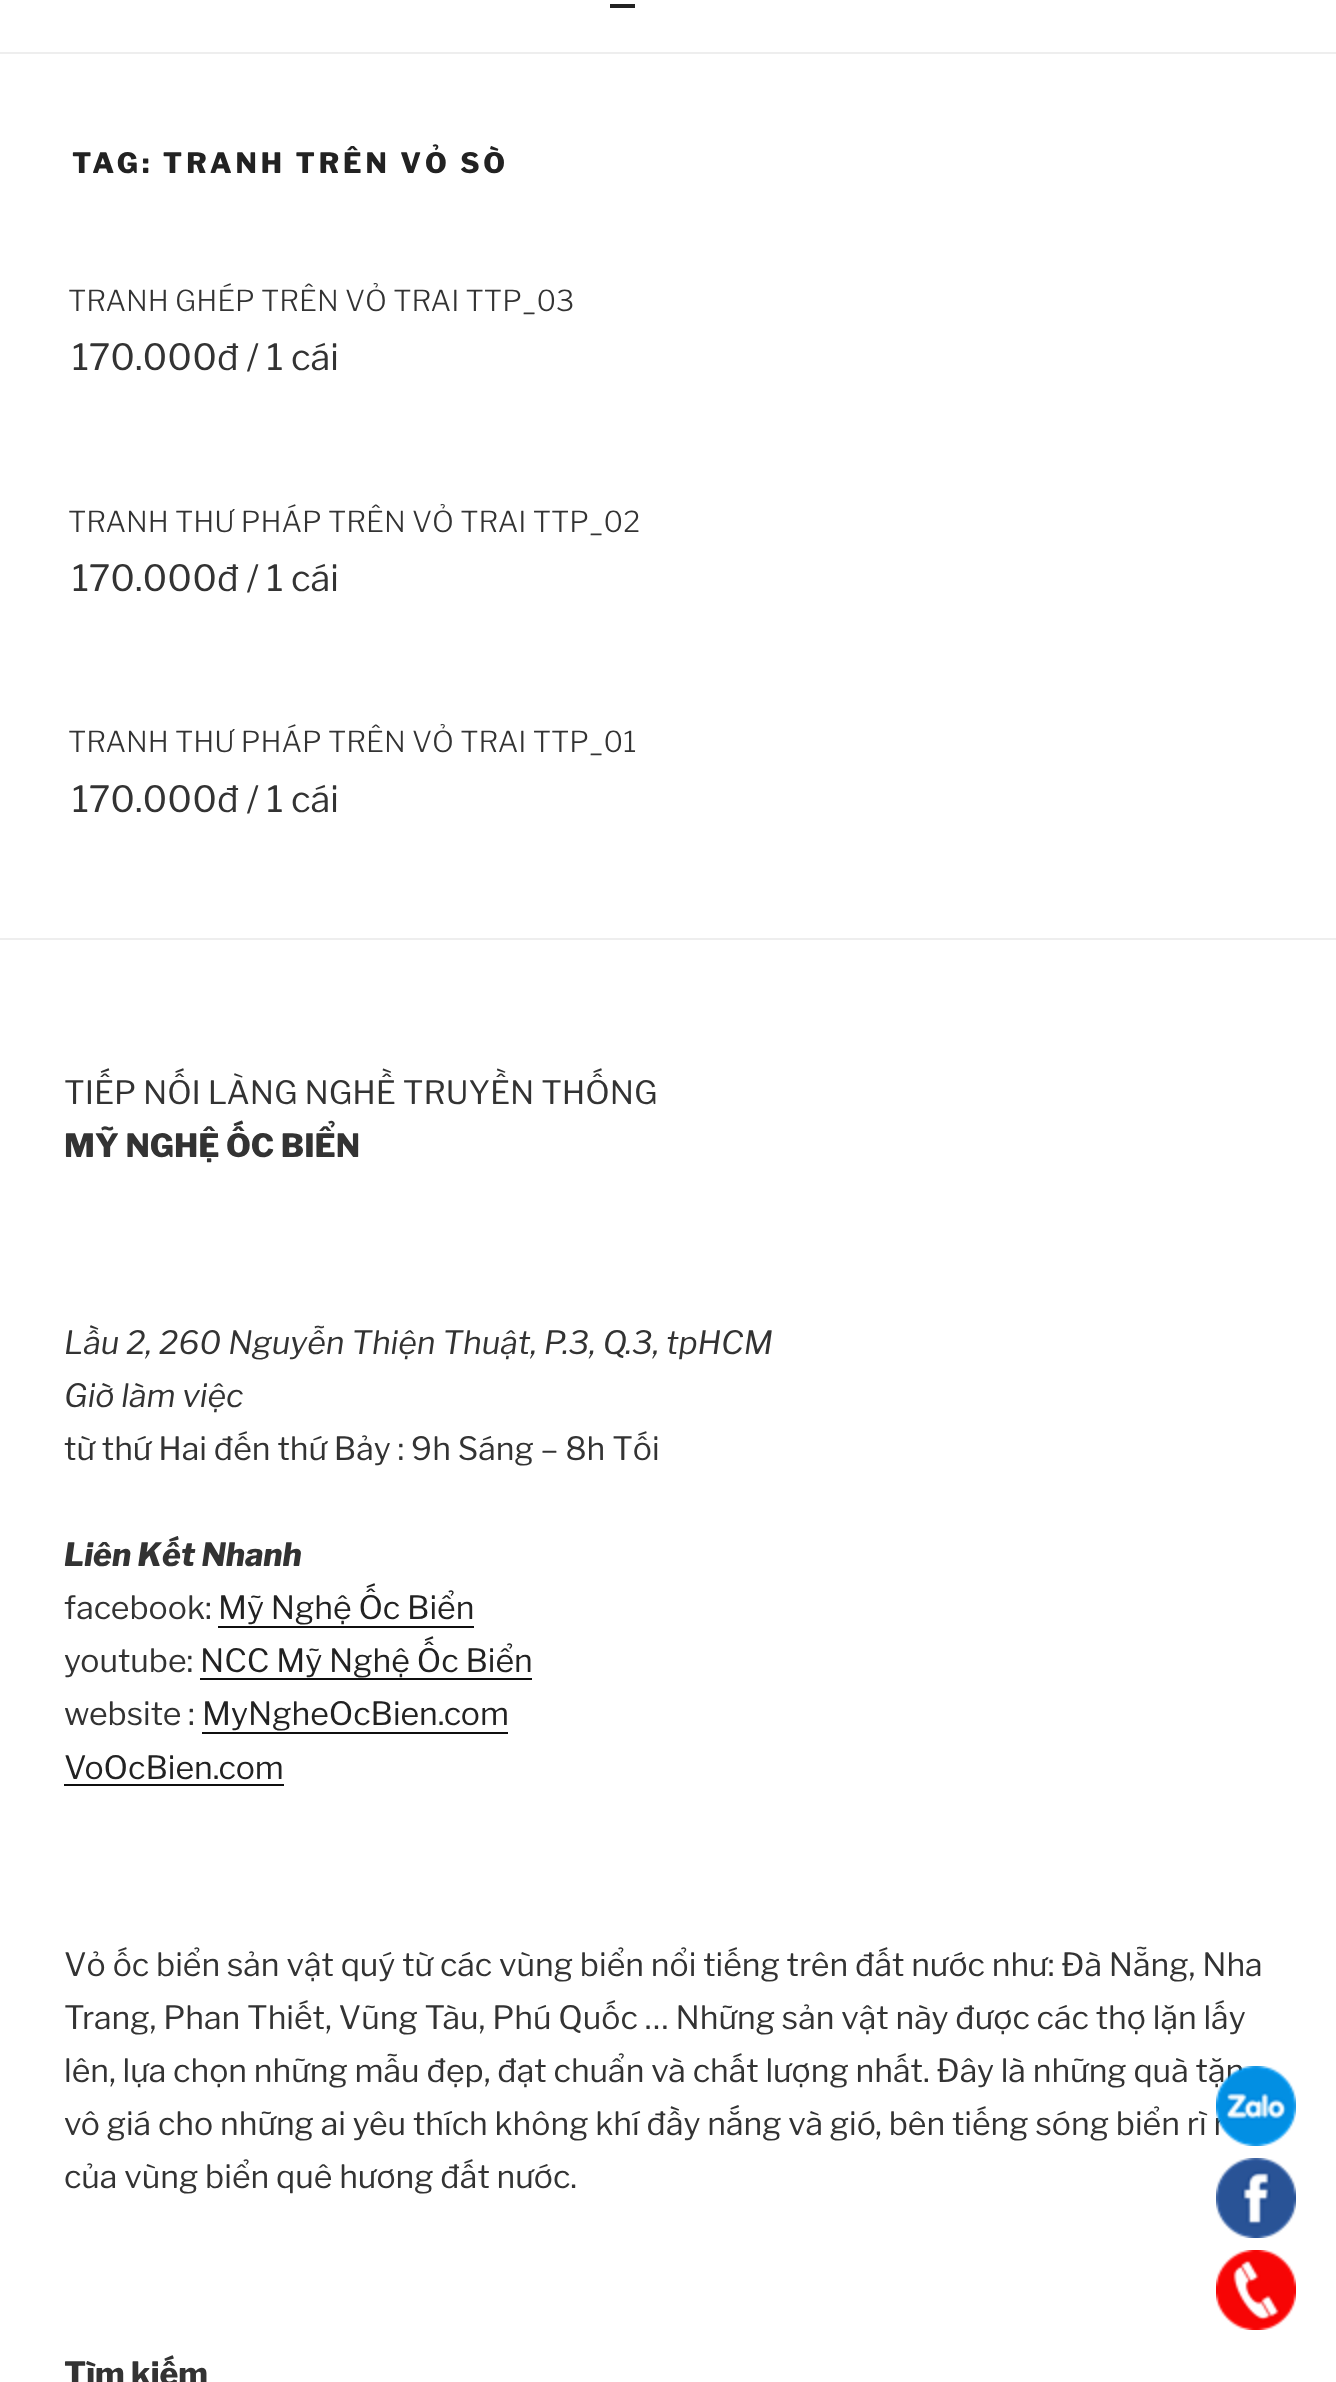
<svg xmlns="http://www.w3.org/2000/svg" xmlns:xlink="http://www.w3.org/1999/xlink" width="1336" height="2382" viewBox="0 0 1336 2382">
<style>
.cls-1{font:800 28px Libre Franklin;letter-spacing:3.9px;fill:#222222}
.cls-2{font:300 28.75px Libre Franklin;fill:#333333}
.cls-3{font:36px Libre Franklin;fill:#333333}
.cls-4{font:32px Libre Franklin;fill:#333333}
.cls-5{font:800 32px Libre Franklin;fill:#333333}
.cls-6{font:italic 32px Libre Franklin;fill:#333333}
.cls-7{font:italic 800 32px Libre Franklin;fill:#333333}
.cls-8{font:32px Libre Franklin;fill:#222222}
</style>
<rect width="100%" height="100%" fill="#ffffff"/>
<rect fill="#eeeeee" x="0" y="52" width="1336" height="2"/>
<rect fill="#222222" x="610" y="4" width="25" height="4"/>
<rect fill="#eeeeee" x="0" y="938" width="1336" height="2"/>
<rect fill="#0f0f0f" x="218" y="1626" width="256" height="2"/>
<rect fill="#0f0f0f" x="200" y="1678" width="332" height="2"/>
<rect fill="#0f0f0f" x="202" y="1732" width="306" height="2"/>
<rect fill="#0f0f0f" x="64" y="1784" width="220" height="2"/>
<image xlink:href="image1.png" x="1216" y="2158" width="80" height="80"/>
<image xlink:href="image2.png" x="1216" y="2250" width="80" height="80"/>
<text class="cls-1" x="72" y="173">TAG: TRANH TRÊN VỎ SÒ</text>
<text class="cls-2" x="68" y="311">TRANH GHÉP TRÊN VỎ TRAI TTP_03</text>
<text class="cls-3" x="72" y="370">170.000đ / 1 cái</text>
<text class="cls-2" x="68" y="532">TRANH THƯ PHÁP TRÊN VỎ TRAI TTP_02</text>
<text class="cls-3" x="72" y="591">170.000đ / 1 cái</text>
<text class="cls-2" x="68" y="752">TRANH THƯ PHÁP TRÊN VỎ TRAI TTP_01</text>
<text class="cls-3" x="72" y="812">170.000đ / 1 cái</text>
<text class="cls-4" x="64" y="1104">TIẾP NỐI LÀNG NGHỀ TRUYỀN THỐNG</text>
<text class="cls-5" x="64" y="1157">MỸ NGHỆ ỐC BIỂN</text>
<text class="cls-6"><tspan x="64" y="1354">Lầu 2, 260 Nguyễn Thiện Thuật, P.3, Q.3, tpHCM</tspan><tspan x="64" y="1407">Giờ làm việc</tspan></text>
<text class="cls-4" x="64" y="1460">từ thứ Hai đến thứ Bảy : 9h Sáng – 8h Tối</text>
<text class="cls-7" x="64" y="1566">Liên Kết Nhanh</text>
<text class="cls-4" x="64" y="1619">facebook:</text>
<text class="cls-8" x="218" y="1619">Mỹ Nghệ Ốc Biển</text>
<text class="cls-4" x="64" y="1672">youtube:</text>
<text class="cls-8" x="200" y="1672">NCC Mỹ Nghệ Ốc Biển</text>
<text class="cls-4" x="64" y="1725">website :</text>
<text class="cls-8" x="202" y="1725">MyNgheOcBien.com</text>
<text class="cls-8" x="64" y="1779">VoOcBien.com</text>
<text class="cls-4"><tspan x="64" y="1976">Vỏ ốc biển sản vật quý từ các vùng biển nổi tiếng trên đất nước như: Đà Nẵng, Nha</tspan><tspan x="64" y="2029">Trang, Phan Thiết, Vũng Tàu, Phú Quốc … Những sản vật này được các thợ lặn lấy</tspan><tspan x="64" y="2082">lên, lựa chọn những mẫu đẹp, đạt chuẩn và chất lượng nhất. Đây là những quà tặn</tspan><tspan x="64" y="2135">vô giá cho những ai yêu thích không khí đầy nắng và gió, bên tiếng sóng biển rì r</tspan><tspan x="64" y="2188">của vùng biển quê hương đất nước.</tspan></text>
<text class="cls-5" x="64" y="2385">Tìm kiếm</text>
<image xlink:href="image0.png" x="1216" y="2066" width="80" height="80"/>
</svg>
